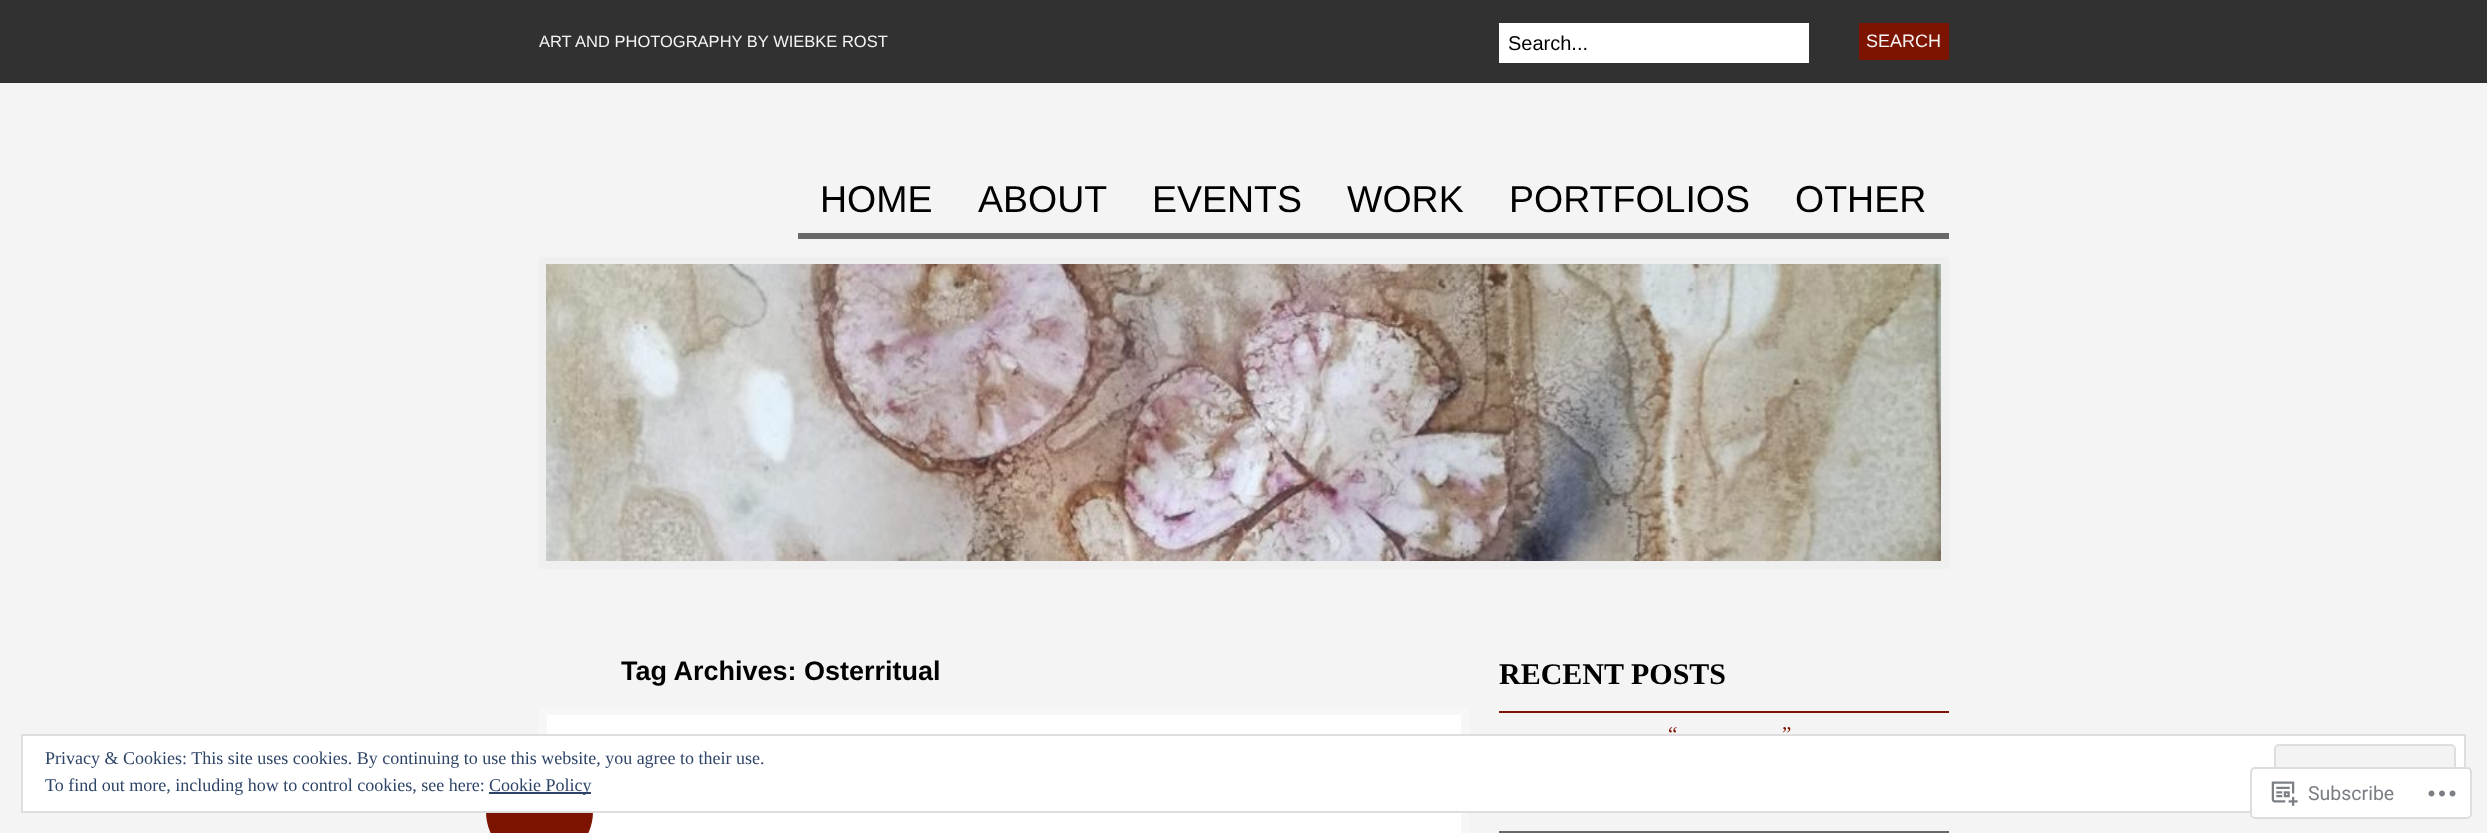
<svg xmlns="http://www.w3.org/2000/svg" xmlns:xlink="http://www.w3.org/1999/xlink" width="2487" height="833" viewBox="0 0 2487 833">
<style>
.cls-1{font:16.5px Liberation Sans;fill:#f4f4f4}
.cls-2{font:20px Liberation Sans;fill:#000000}
.cls-3{font:18px Liberation Sans;fill:#f4f4f4}
.cls-4{font:37.5px Liberation Sans;fill:#000000}
.cls-5{font:bold 27px Liberation Sans;fill:#000000}
.cls-6{font:bold 30px Liberation Serif;fill:#000000}
.cls-7{font:21px Liberation Serif;fill:#7d1401}
.cls-8{font:18px Liberation Serif;fill:#2e4467}
.cls-9{font:19.5px Roboto;fill:#7a7e84}
</style>
<rect width="100%" height="100%" fill="#f4f4f4"/>
<rect fill="#313131" x="0" y="0" width="2487" height="83"/>
<rect fill="#ffffff" x="1499" y="23" width="310" height="40"/>
<rect fill="#7d1401" x="1859" y="23" width="90" height="37"/>
<rect fill="#686868" x="798" y="233" width="1151" height="6"/>
<rect fill="none" stroke="#efefef" stroke-width="8" x="543" y="261" width="1402" height="304"/>
<image xlink:href="image0.png" x="546" y="264" width="1395" height="297"/>
<rect fill="#ffffff" stroke="#f7f7f7" stroke-width="8" x="543" y="711" width="922" height="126"/>
<rect fill="#7d1401" x="486" y="759" width="107" height="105" rx="52.5"/>
<rect fill="#7d1401" x="1499" y="711" width="450" height="2"/>
<rect fill="#686868" x="1499" y="831" width="450" height="2"/>
<rect fill="#ffffff" stroke="#dedede" stroke-width="2" x="22" y="735" width="2443" height="77"/>
<rect fill="#f3f3f3" stroke="#dedede" stroke-width="2" x="2275" y="745" width="180" height="57" rx="4"/>
<rect fill="#2e4467" x="489" y="792" width="102" height="2"/>
<rect fill="#ffffff" fill-opacity="0.98" x="2250" y="767" width="222" height="52" rx="5"/>
<rect fill="none" stroke="#dcdcde" stroke-opacity="0.98" stroke-width="2" x="2251" y="768" width="220" height="50" rx="4"/>
<image xlink:href="image1.png" x="2271" y="781" width="27" height="25"/>
<image xlink:href="image2.png" x="2428" y="790" width="28" height="7"/>
<text class="cls-1" x="539" y="47">ART AND PHOTOGRAPHY BY WIEBKE ROST</text>
<text class="cls-2" x="1508" y="50">Search...</text>
<text class="cls-3" x="1866" y="47">SEARCH</text>
<text class="cls-4" x="820" y="212">HOME</text>
<text class="cls-4" x="978" y="212">ABOUT</text>
<text class="cls-4" x="1152" y="212">EVENTS</text>
<text class="cls-4" x="1347" y="212">WORK</text>
<text class="cls-4" x="1509" y="212">PORTFOLIOS</text>
<text class="cls-4" x="1795" y="212">OTHER</text>
<text class="cls-5" x="621" y="680">Tag Archives: Osterritual</text>
<text class="cls-6" x="1499" y="684">RECENT POSTS</text>
<text class="cls-7" x="1668" y="741">“</text>
<text class="cls-7" x="1782" y="741">”</text>
<text class="cls-8"><tspan x="45" y="764">Privacy &amp; Cookies: This site uses cookies. By continuing to use this website, you agree to their use.</tspan><tspan x="45" y="791">To find out more, including how to control cookies, see here:</tspan></text>
<text class="cls-8" x="489" y="791">Cookie Policy</text>
<text class="cls-9" x="2308" y="800">Subscribe</text>
</svg>
